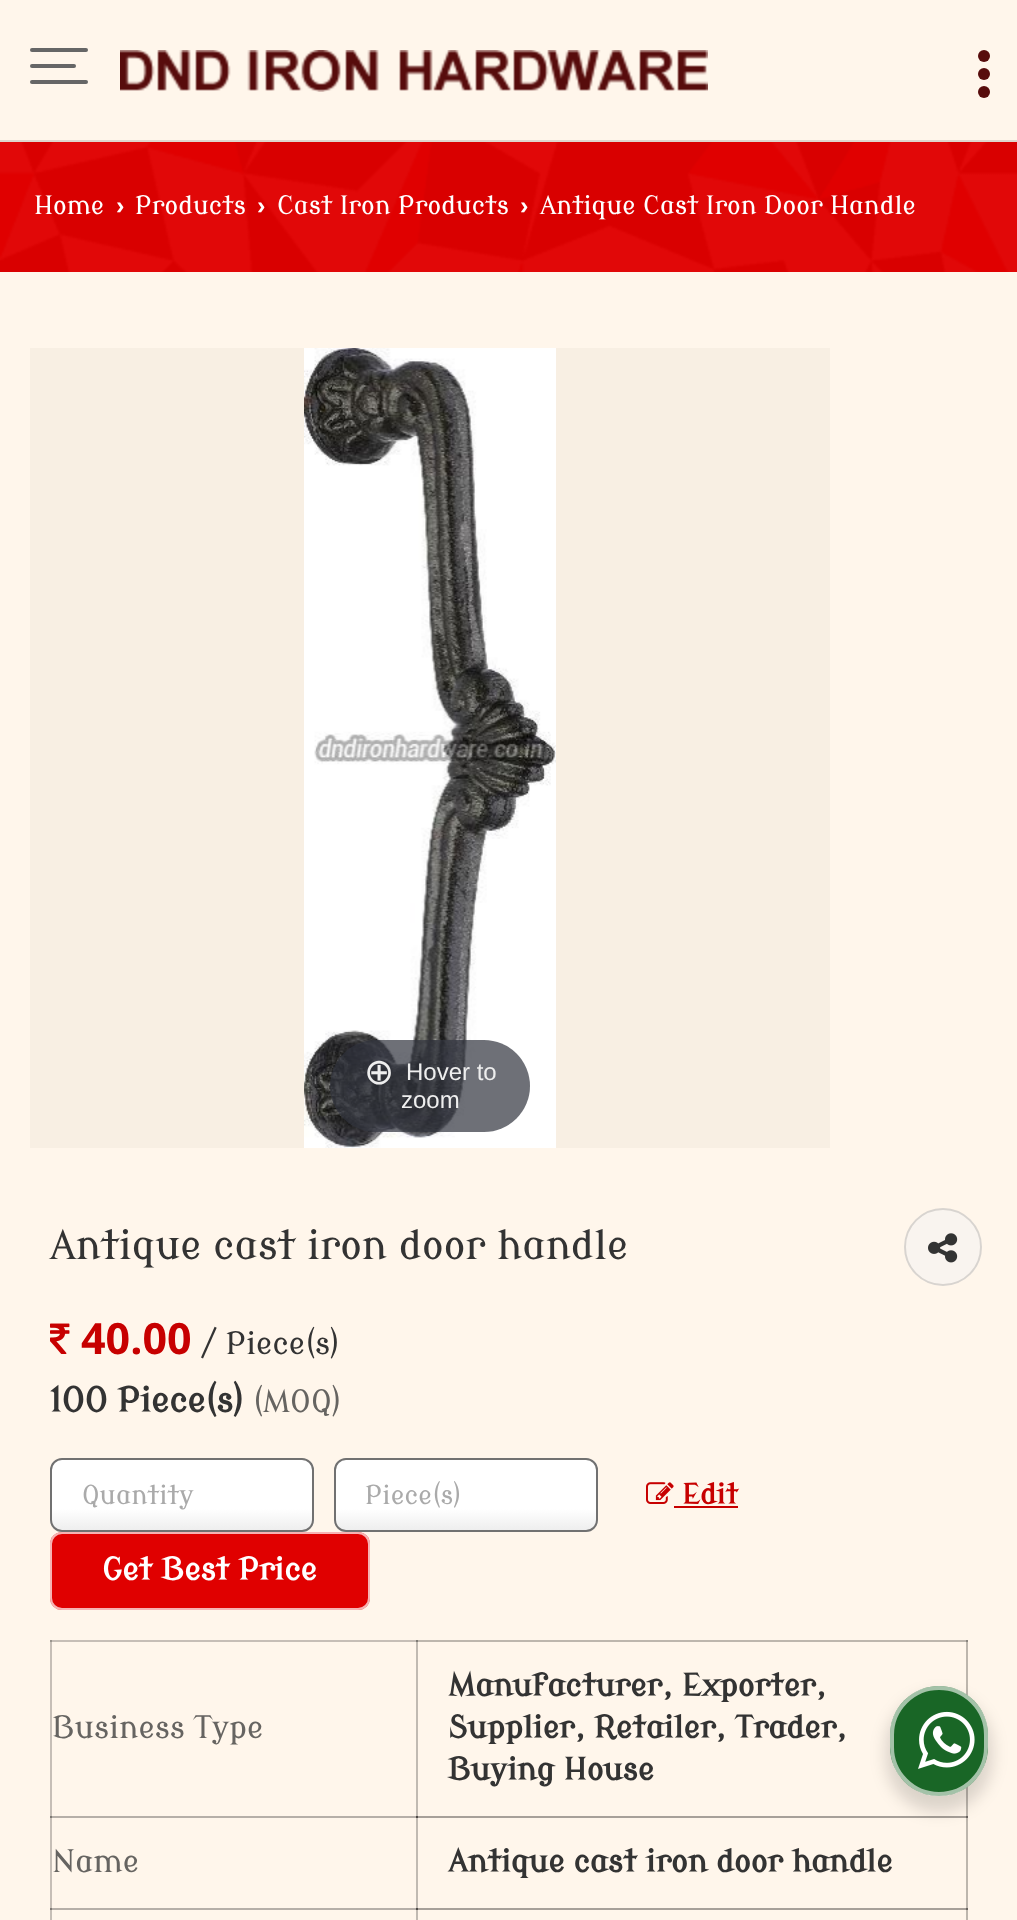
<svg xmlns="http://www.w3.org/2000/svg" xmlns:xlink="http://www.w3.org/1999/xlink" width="1017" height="1920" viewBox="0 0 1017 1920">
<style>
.cls-1{font:25.25px Modern Antiqua;fill:#ffffff}
.cls-2{font:bold 25.25px Liberation Sans;fill:#ffffff}
.cls-3{font:36px DejaVu Sans;fill:#eeeeee}
.cls-4{font:24px Liberation Sans;fill:#eeeeee}
.cls-5{font:40px Modern Antiqua;fill:#333333}
.cls-6{font:bold 43px Open Sans;fill:#c70000}
.cls-7{font:30.75px Modern Antiqua;fill:#333333}
.cls-8{font:bold 34px Modern Antiqua;fill:#333333}
.cls-9{font:30.75px Modern Antiqua;fill:#666461}
.cls-10{font:26px Modern Antiqua;fill:#aaaaaa}
.cls-11{font:bold 28px Modern Antiqua;fill:#c70000}
.cls-12{font:bold 30.75px Modern Antiqua;fill:#ffffff}
.cls-13{font:bold 30.75px Modern Antiqua;fill:#333333}
</style>
<defs>
<clipPath id="clip1"><rect x="50" y="1458" width="264" height="74" rx="12"/></clipPath>
<linearGradient id="g1" gradientUnits="userSpaceOnUse" x1="182" y1="1460" x2="182" y2="1530"><stop offset="0.7" stop-color="#ffffff"/><stop offset="1" stop-color="#eeeeee"/></linearGradient>
<clipPath id="clip2"><rect x="334" y="1458" width="264" height="74" rx="12"/></clipPath>
<linearGradient id="g2" gradientUnits="userSpaceOnUse" x1="466" y1="1460" x2="466" y2="1530"><stop offset="0.7" stop-color="#ffffff"/><stop offset="1" stop-color="#eeeeee"/></linearGradient>
</defs>
<rect width="100%" height="100%" fill="#fff6eb"/>
<rect fill="#c1bab2" x="416" y="1640" width="2" height="280"/>
<rect fill="#b6afa8" x="50" y="1816" width="368" height="2"/>
<rect fill="#a7a099" x="416" y="1816" width="552" height="2"/>
<rect fill="#4c4845" x="416" y="1816" width="2" height="2"/>
<rect fill="#b6afa8" x="50" y="1908" width="368" height="2"/>
<rect fill="#a7a099" x="416" y="1908" width="552" height="2"/>
<rect fill="#4c4845" x="416" y="1908" width="2" height="2"/>
<rect fill="#c6beb6" x="50" y="1640" width="2" height="280"/>
<rect fill="#7d7974" x="50" y="1816" width="2" height="2"/>
<rect fill="#7d7974" x="50" y="1908" width="2" height="2"/>
<rect fill="#bdb6ad" x="966" y="1640" width="2" height="280"/>
<rect fill="#696460" x="966" y="1816" width="2" height="2"/>
<rect fill="#696460" x="966" y="1908" width="2" height="2"/>
<rect fill="#ded6cc" x="0" y="140" width="1017" height="2"/>
<rect fill="#666666" x="30" y="48" width="58" height="4" rx="2"/>
<rect fill="#666666" x="30" y="64" width="46" height="4" rx="2"/>
<rect fill="#666666" x="30" y="80" width="58" height="4" rx="2"/>
<image xlink:href="image0.png" x="120" y="50" width="588" height="42"/>
<circle fill="#570c0c" cx="984" cy="74" r="6"/>
<circle fill="#570c0c" cx="984" cy="56" r="6"/>
<circle fill="#570c0c" cx="984" cy="92" r="6"/>
<rect fill="#e00000" x="0" y="142" width="1017" height="130"/>
<image xlink:href="image1.png" x="0" y="142" width="1017" height="130"/>
<rect fill="#f8efe3" x="30" y="348" width="800" height="800"/>
<image xlink:href="image2.png" x="304" y="348" width="252" height="800"/>
<rect fill="#31333d" fill-opacity="0.7" x="330" y="1040" width="200" height="92" rx="46"/>
<circle fill="#f9f4ef" cx="943" cy="1247" r="39"/>
<circle fill="none" stroke="#000000" stroke-opacity="0.13" stroke-width="2" cx="943" cy="1247" r="38"/>
<image xlink:href="image3.png" x="928" y="1233" width="30" height="30"/>
<image xlink:href="image4.png" x="50" y="1323" width="20" height="31"/>
<g clip-path="url(#clip1)">
<rect fill="url(#g1)" x="50" y="1460" width="264" height="70"/>
</g>
<rect fill="none" stroke="#717171" stroke-width="2" x="51" y="1459" width="262" height="72" rx="11"/>
<g clip-path="url(#clip2)">
<rect fill="url(#g2)" x="334" y="1460" width="264" height="70"/>
</g>
<rect fill="none" stroke="#717171" stroke-width="2" x="335" y="1459" width="262" height="72" rx="11"/>
<image xlink:href="image5.png" x="646" y="1482" width="28" height="22"/>
<rect fill="#c70000" x="674" y="1506" width="64" height="2"/>
<rect fill="#e00000" x="50" y="1532" width="320" height="78" rx="12"/>
<rect fill="none" stroke="#ffffff" stroke-opacity="0.7" stroke-width="2" x="51" y="1533" width="318" height="76" rx="11"/>
<rect fill="#c6beb6" x="50" y="1640" width="368" height="2"/>
<rect fill="#bdb6ad" x="416" y="1640" width="552" height="2"/>
<rect fill="#7f7b75" x="416" y="1640" width="2" height="2"/>
<rect fill="#99948d" x="50" y="1640" width="2" height="2"/>
<rect fill="#8b8680" x="966" y="1640" width="2" height="2"/>
<rect fill="#000000" fill-opacity="0.14" filter="blur(8px)" x="886" y="1694" width="106" height="118" rx="53"/>
<rect fill="#196626" x="890" y="1686" width="98" height="110" rx="49"/>
<rect fill="none" stroke="#ffffff" stroke-opacity="0.6" stroke-width="4" x="892" y="1688" width="94" height="106" rx="47"/>
<image xlink:href="image6.png" x="918" y="1711" width="57" height="58"/>
<text class="cls-1" x="34" y="214">Home</text>
<text class="cls-2" x="116" y="214">›</text>
<text class="cls-1" x="135" y="214">Products</text>
<text class="cls-2" x="257" y="214">›</text>
<text class="cls-1" x="277" y="214">Cast Iron Products</text>
<text class="cls-2" x="520" y="214">›</text>
<text class="cls-1" x="540" y="214">Antique Cast Iron Door Handle</text>
<text class="cls-3" x="364" y="1084">⊕</text>
<text class="cls-4" x="406" y="1080">Hover to</text>
<text class="cls-4" x="401" y="1108">zoom</text>
<text class="cls-5" x="50" y="1259">Antique cast iron door handle</text>
<text class="cls-6" x="81" y="1354">40.00</text>
<text class="cls-7" x="201" y="1354">/ Piece(s)</text>
<text class="cls-8" x="50" y="1412">100 Piece(s)</text>
<text class="cls-9" x="253" y="1412">(MOQ)</text>
<text class="cls-10" x="82" y="1504">Quantity</text>
<text class="cls-10" x="365" y="1504">Piece(s)</text>
<text class="cls-11" x="682" y="1504">Edit</text>
<text class="cls-12" x="102" y="1580">Get Best Price</text>
<text class="cls-9" x="52" y="1738">Business Type</text>
<text class="cls-13"><tspan x="448" y="1696">Manufacturer, Exporter,</tspan><tspan x="448" y="1738">Supplier, Retailer, Trader,</tspan><tspan x="448" y="1780">Buying House</tspan></text>
<text class="cls-9" x="52" y="1872">Name</text>
<text class="cls-13" x="448" y="1872">Antique cast iron door handle</text>
</svg>
